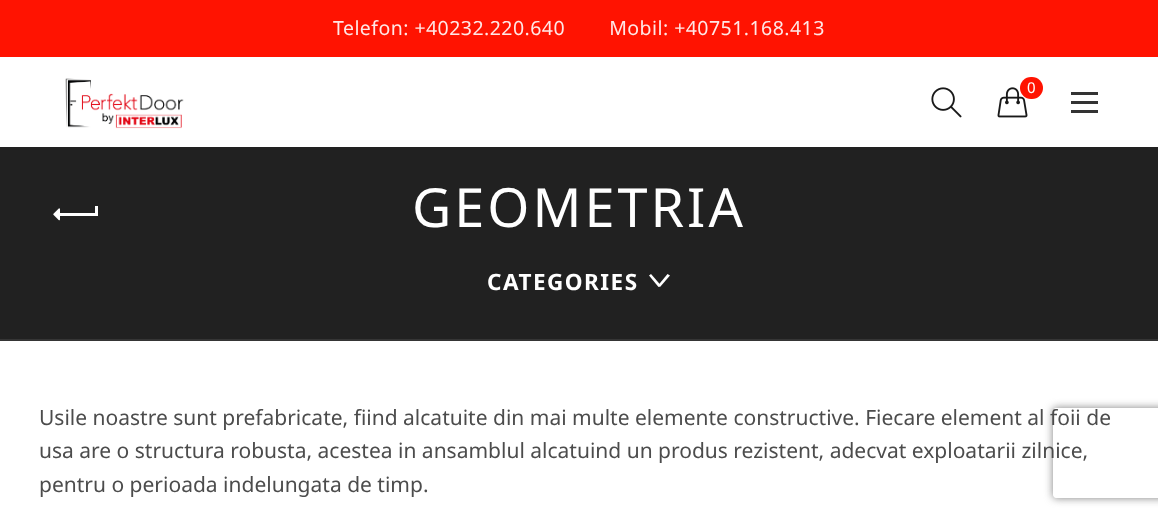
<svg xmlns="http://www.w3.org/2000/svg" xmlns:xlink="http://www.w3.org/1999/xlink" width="1158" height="519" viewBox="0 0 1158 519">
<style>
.cls-1{font:19.5px Noto Sans;letter-spacing:0.45px;fill:#ffe7e6}
.cls-2{font:15px Noto Sans;fill:#ffffff}
.cls-3{font:54px Noto Sans;letter-spacing:3px;fill:#ffffff}
.cls-4{font:bold 22.5px Noto Sans;letter-spacing:1.5px;fill:#ffffff}
.cls-5{font:21px Noto Sans;fill:#4c4c4c}
</style>
<defs>
<clipPath id="clip1"><path d="M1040 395H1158V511H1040ZM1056 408H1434C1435.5 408 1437 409.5 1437 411V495C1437 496.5 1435.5 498 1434 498H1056C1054.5 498 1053 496.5 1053 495V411C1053 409.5 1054.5 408 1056 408Z" clip-rule="evenodd"/></clipPath>
</defs>
<rect width="100%" height="100%" fill="#ffffff"/>
<rect fill="#ff1301" x="0" y="0" width="1158" height="57"/>
<image xlink:href="image0.png" x="65" y="78" width="119" height="51"/>
<image xlink:href="image1.png" x="931" y="87" width="31" height="31"/>
<image xlink:href="image2.png" x="997" y="87" width="31" height="31"/>
<rect fill="#ff1301" x="1020" y="77" width="23" height="22" rx="11"/>
<rect fill="#333333" x="1071" y="101" width="27" height="3"/>
<rect fill="#333333" x="1071" y="92" width="27" height="3"/>
<rect fill="#333333" x="1071" y="110" width="27" height="3"/>
<rect fill="#212121" x="0" y="147" width="1158" height="192"/>
<rect fill="#353535" x="0" y="339" width="1158" height="2"/>
<rect fill="#ffffff" x="59" y="213" width="37" height="3"/>
<image xlink:href="image3.png" x="53" y="208" width="7" height="13"/>
<rect fill="#ffffff" x="95" y="206" width="3" height="10"/>
<path fill="#ffffff" d="M658 285.5L667.5 274L670 275.5L660 287Z"/>
<path fill="#ffffff" d="M651 274L661 285.5L658.5 287L649 275.5Z"/>
<g clip-path="url(#clip1)">
<rect fill="#808080" filter="blur(4px)" x="1053" y="408" width="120" height="90" rx="3"/>
</g>
<text class="cls-1" xml:space="preserve" x="333" y="35">Telefon: +40232.220.640        Mobil: +40751.168.413</text>
<text class="cls-2" x="1027" y="93">0</text>
<text class="cls-3" x="412" y="227">GEOMETRIA</text>
<text class="cls-4" x="487" y="290">CATEGORIES</text>
<text class="cls-5"><tspan x="39" y="425">Usile noastre sunt prefabricate, fiind alcatuite din mai multe elemente constructive. Fiecare element al foii de</tspan><tspan x="39" y="458">usa are o structura robusta, acestea in ansamblul alcatuind un produs rezistent, adecvat exploatarii zilnice,</tspan><tspan x="39" y="492">pentru o perioada indelungata de timp.</tspan></text>
</svg>
